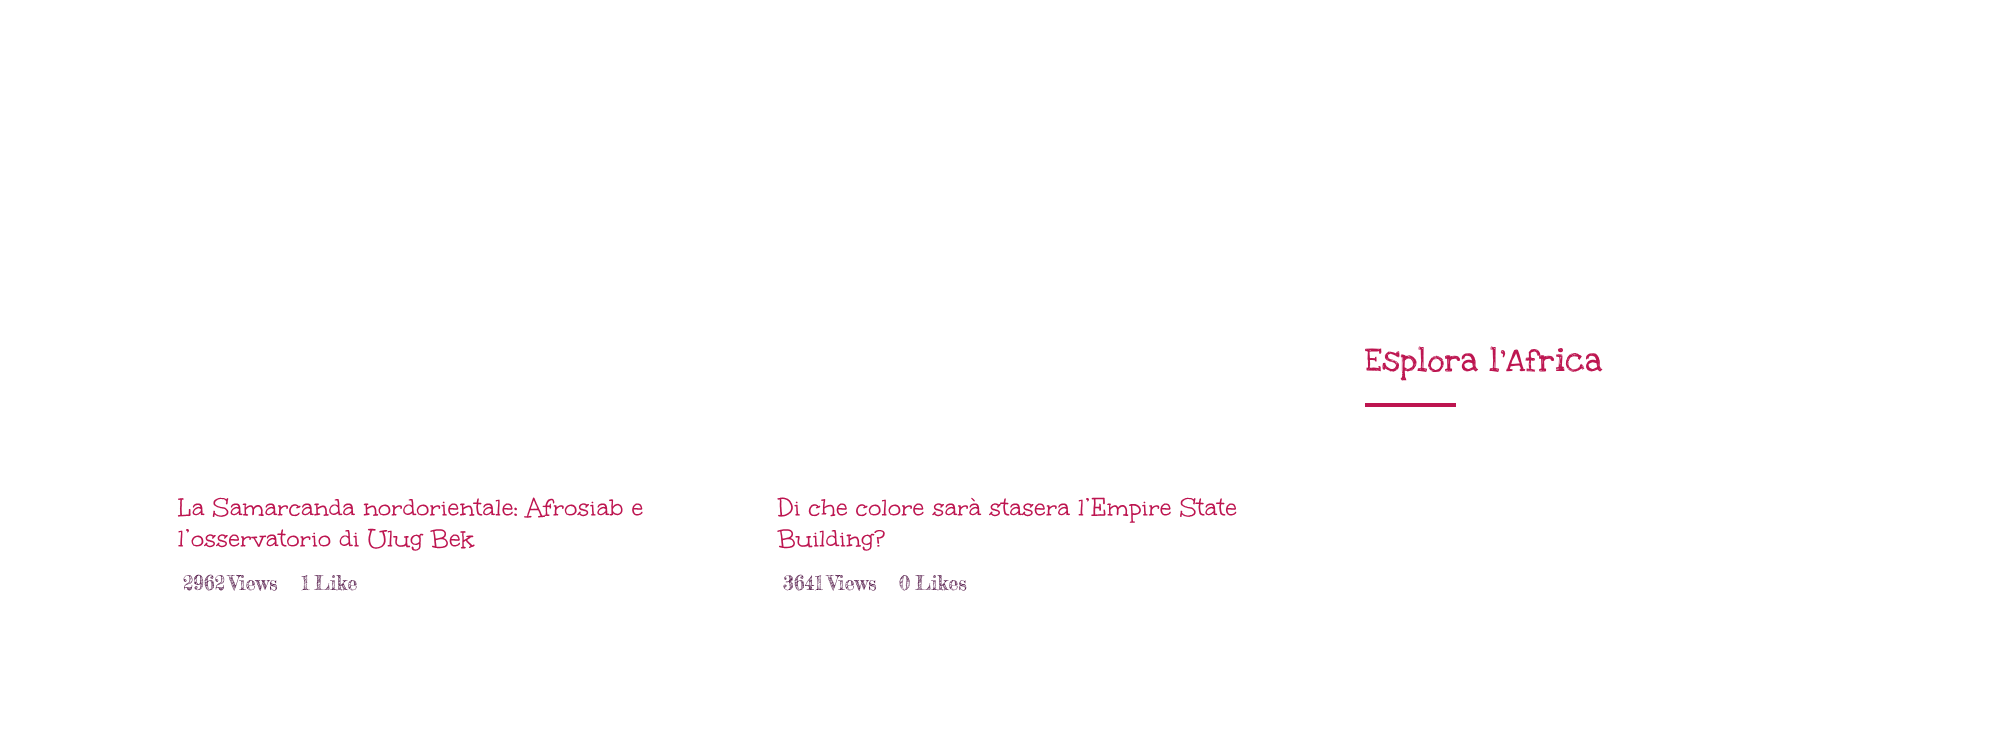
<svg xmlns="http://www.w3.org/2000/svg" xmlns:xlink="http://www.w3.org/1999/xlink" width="1992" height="756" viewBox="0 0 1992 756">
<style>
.cls-1{font:33.25px Love Ya Like A Sister;letter-spacing:0.3px;fill:#bd1550}
.cls-2{font:26.6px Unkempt;letter-spacing:0.25px;fill:#bd1550}
.cls-3{font:20px Fredericka the Great;fill:#490a3d}
</style>
<rect width="100%" height="100%" fill="#ffffff"/>
<rect fill="#bd1550" x="1365" y="403" width="91" height="4"/>
<text class="cls-1" x="1365" y="371">Esplora l’Africa</text>
<text class="cls-2"><tspan x="178" y="517">La Samarcanda nordorientale: Afrosiab e</tspan><tspan x="178" y="548">l’osservatorio di Ulug Bek</tspan></text>
<text class="cls-3" x="183" y="590">2962</text>
<text class="cls-3" x="229" y="590">Views</text>
<text class="cls-3" x="301" y="590">1</text>
<text class="cls-3" x="314" y="590">Like</text>
<text class="cls-2"><tspan x="778" y="517">Di che colore sarà stasera l’Empire State</tspan><tspan x="778" y="548">Building?</tspan></text>
<text class="cls-3" x="783" y="590">3641</text>
<text class="cls-3" x="828" y="590">Views</text>
<text class="cls-3" x="899" y="590">0</text>
<text class="cls-3" x="915" y="590">Likes</text>
</svg>
